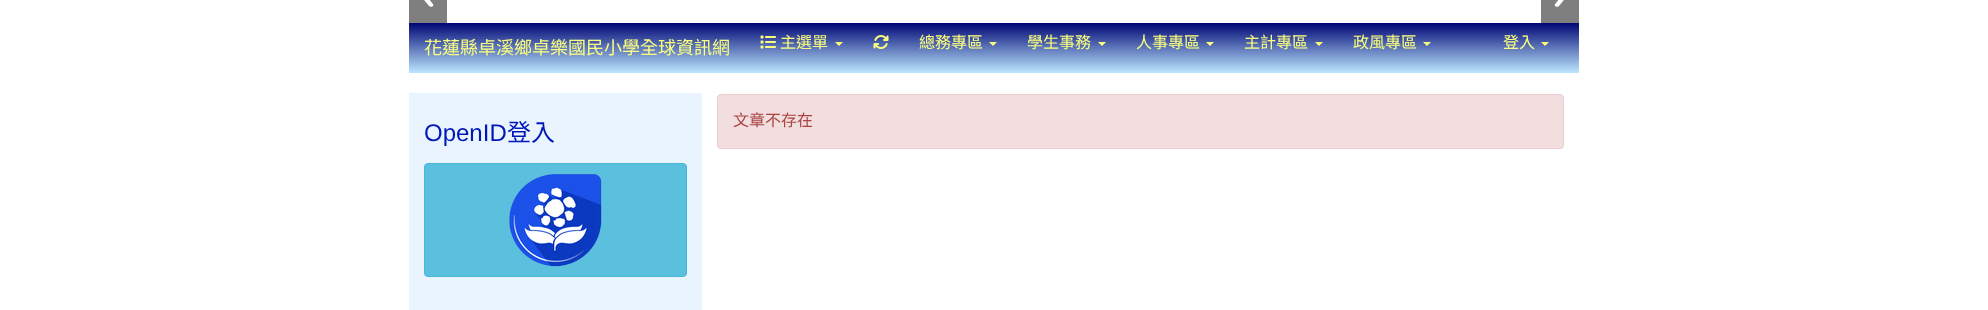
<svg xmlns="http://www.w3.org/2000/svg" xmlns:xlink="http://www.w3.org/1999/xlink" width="1988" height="310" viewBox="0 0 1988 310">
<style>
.cls-1{font:18px Noto Sans CJK TC;fill:#fbff7d}
.cls-2{font:16px Noto Sans CJK TC;fill:#fbff7d}
.cls-3{font:24px Liberation Sans;fill:#0018b8}
.cls-4{font:24px Noto Sans CJK TC;fill:#0018b8}
.cls-5{font:16px Noto Sans CJK TC;fill:#a94442}
</style>
<defs>
<linearGradient id="g1" gradientUnits="userSpaceOnUse" x1="994" y1="23" x2="994" y2="73"><stop offset="0" stop-color="#000675"/><stop offset="1" stop-color="#bde8ff"/></linearGradient>
</defs>
<rect width="100%" height="100%" fill="#ffffff"/>
<image xlink:href="image0.png" x="409" y="0" width="38" height="23"/>
<image xlink:href="image1.png" x="1541" y="0" width="38" height="23"/>
<rect fill="url(#g1)" x="409" y="23" width="1170" height="50"/>
<image xlink:href="image2.png" x="760" y="35" width="16" height="14"/>
<path fill="#fbff7d" d="M835 42H843L839 46Z"/>
<image xlink:href="image3.png" x="873" y="35" width="16" height="14"/>
<path fill="#fbff7d" d="M989 42H997L993 46Z"/>
<path fill="#fbff7d" d="M1098 42H1106L1102 46Z"/>
<path fill="#fbff7d" d="M1206 42H1214L1210 46Z"/>
<path fill="#fbff7d" d="M1315 42H1323L1319 46Z"/>
<path fill="#fbff7d" d="M1423 42H1431L1427 46Z"/>
<path fill="#fbff7d" d="M1541 42H1549L1545 46Z"/>
<rect fill="#e9f4ff" x="409" y="93" width="293" height="217"/>
<rect fill="#5bc0de" stroke="#46b8da" x="424.5" y="163.5" width="262" height="113" rx="3.5"/>
<image xlink:href="image4.png" x="509" y="174" width="93" height="93"/>
<rect fill="#f2dede" stroke="#ebccd1" x="717.5" y="94.5" width="846" height="54" rx="3.5"/>
<text class="cls-1" x="424" y="54">花蓮縣卓溪鄉卓樂國民小學全球資訊網</text>
<text class="cls-2" x="780" y="48">主選單</text>
<text class="cls-2" x="919" y="48">總務專區</text>
<text class="cls-2" x="1027" y="48">學生事務</text>
<text class="cls-2" x="1136" y="48">人事專區</text>
<text class="cls-2" x="1244" y="48">主計專區</text>
<text class="cls-2" x="1353" y="48">政風專區</text>
<text class="cls-2" x="1503" y="48">登入</text>
<text class="cls-3" x="424" y="141">OpenID</text>
<text class="cls-4" x="507" y="141">登入</text>
<text class="cls-5" x="733" y="126">文章不存在</text>
</svg>
